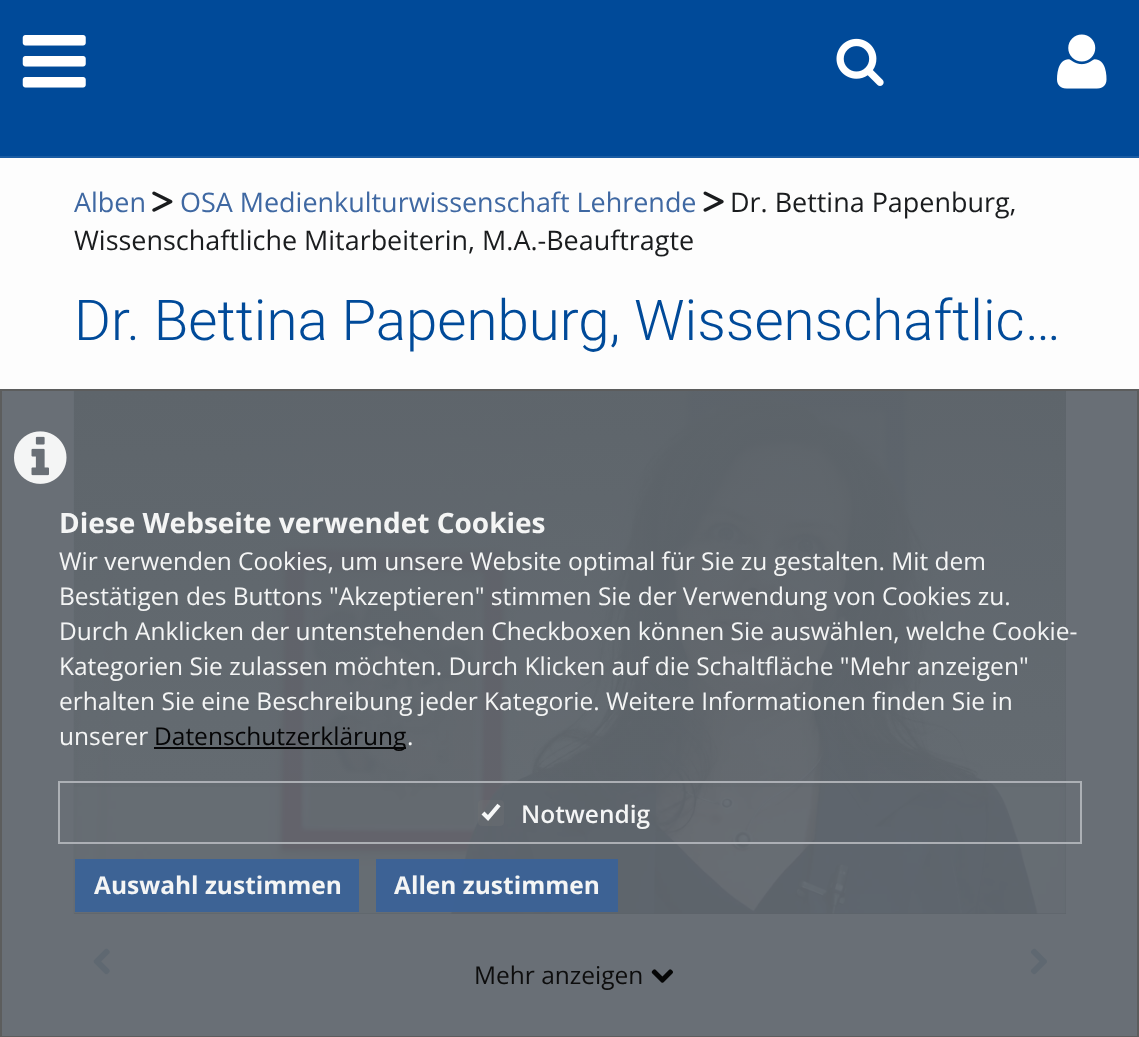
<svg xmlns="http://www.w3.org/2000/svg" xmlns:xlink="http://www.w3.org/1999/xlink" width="1139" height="1037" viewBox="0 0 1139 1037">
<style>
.cls-1{font:26.95px Open Sans;fill:#3f68a2}
.cls-2{font:26.95px Open Sans;fill:#1a1c1e}
.cls-3{font:300 56.4px Roboto;fill:#004a99}
.cls-4{font:bold 28px Open Sans;fill:#f4f5f5}
.cls-5{font:24.5px Open Sans;fill:#f4f5f5}
.cls-6{font:24.5px Open Sans;fill:#050506}
.cls-7{font:600 24.5px Open Sans;fill:#f4f5f5}
.cls-8{font:bold 24.5px Open Sans;fill:#f4f5f5}
.cls-9{font:24.5px Open Sans;fill:#0d0d0d}
</style>
<defs>
<linearGradient id="g1" gradientUnits="userSpaceOnUse" x1="570" y1="390" x2="570" y2="914"><stop offset="0" stop-color="#5c6369" stop-opacity="0.8"/><stop offset="1" stop-color="#5c6369" stop-opacity="0"/></linearGradient>
</defs>
<rect width="100%" height="100%" fill="#fdfdfd"/>
<rect fill="#004a99" x="0" y="0" width="1139" height="156"/>
<rect fill="#1a5ca3" x="0" y="156" width="1139" height="2"/>
<image xlink:href="image0.png" x="22" y="35" width="64" height="53"/>
<image xlink:href="image1.png" x="836" y="38" width="48" height="48"/>
<image xlink:href="image2.png" x="1057" y="34" width="50" height="55"/>
<rect fill="#696f76" x="0" y="389" width="1139" height="648"/>
<image xlink:href="image3.png" x="152" y="191" width="21" height="21"/>
<image xlink:href="image4.png" x="703" y="191" width="21" height="21"/>
<rect fill="#5c6369" x="74" y="390" width="992" height="524"/>
<image xlink:href="image5.png" x="73" y="390" width="993" height="524"/>
<rect fill="url(#g1)" x="74" y="390" width="992" height="397"/>
<image xlink:href="image6.png" x="93" y="948" width="17" height="27"/>
<image xlink:href="image7.png" x="1030" y="948" width="17" height="27"/>
<rect fill="none" stroke="#606770" stroke-width="2" x="213" y="1037" width="269" height="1"/>
<rect fill="none" stroke="#5c5c5c" stroke-opacity="0.95" stroke-width="2" x="1" y="390" width="1137" height="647"/>
<image xlink:href="image8.png" x="14" y="431" width="53" height="53"/>
<rect fill="#000000" fill-opacity="0.95" x="154" y="747" width="252" height="2"/>
<rect fill="none" stroke="#b0b3b8" stroke-opacity="0.95" stroke-width="2" x="59" y="782" width="1022" height="61"/>
<rect fill="#767676" fill-opacity="0.28" x="478" y="800" width="26" height="26" rx="4"/>
<path fill="none" stroke="#f7f8f8" stroke-width="4.2" d="M483 813L488 818L499 805"/>
<rect fill="#3d6395" x="75" y="859" width="284" height="53"/>
<rect fill="#3b6297" fill-opacity="0.95" x="376" y="859" width="242" height="53"/>
<image xlink:href="image9.png" x="651" y="969" width="22" height="14"/>
<text class="cls-1" x="74" y="212">Alben</text>
<text class="cls-1" x="180" y="212">OSA Medienkulturwissenschaft Lehrende</text>
<text class="cls-2" x="730" y="212">Dr. Bettina Papenburg,</text>
<text class="cls-2" x="74" y="250">Wissenschaftliche Mitarbeiterin, M.A.-Beauftragte</text>
<text class="cls-3" x="74" y="340">Dr. Bettina Papenburg, Wissenschaftlic…</text>
<text class="cls-4" x="59" y="533">Diese Webseite verwendet Cookies</text>
<text class="cls-5"><tspan x="59" y="570">Wir verwenden Cookies, um unsere Website optimal für Sie zu gestalten. Mit dem</tspan><tspan x="59" y="605">Bestätigen des Buttons "Akzeptieren" stimmen Sie der Verwendung von Cookies zu.</tspan><tspan x="59" y="640">Durch Anklicken der untenstehenden Checkboxen können Sie auswählen, welche Cookie-</tspan><tspan x="59" y="675">Kategorien Sie zulassen möchten. Durch Klicken auf die Schaltfläche "Mehr anzeigen"</tspan><tspan x="59" y="710">erhalten Sie eine Beschreibung jeder Kategorie. Weitere Informationen finden Sie in</tspan><tspan x="59" y="745">unserer</tspan></text>
<text class="cls-6" x="154" y="745">Datenschutzerklärung</text>
<text class="cls-5" x="407" y="745">.</text>
<text class="cls-7" x="521" y="823">Notwendig</text>
<text class="cls-8" x="94" y="894">Auswahl zustimmen</text>
<text class="cls-8" x="394" y="894">Allen zustimmen</text>
<text class="cls-9" x="474" y="984">Mehr anzeigen</text>
</svg>
